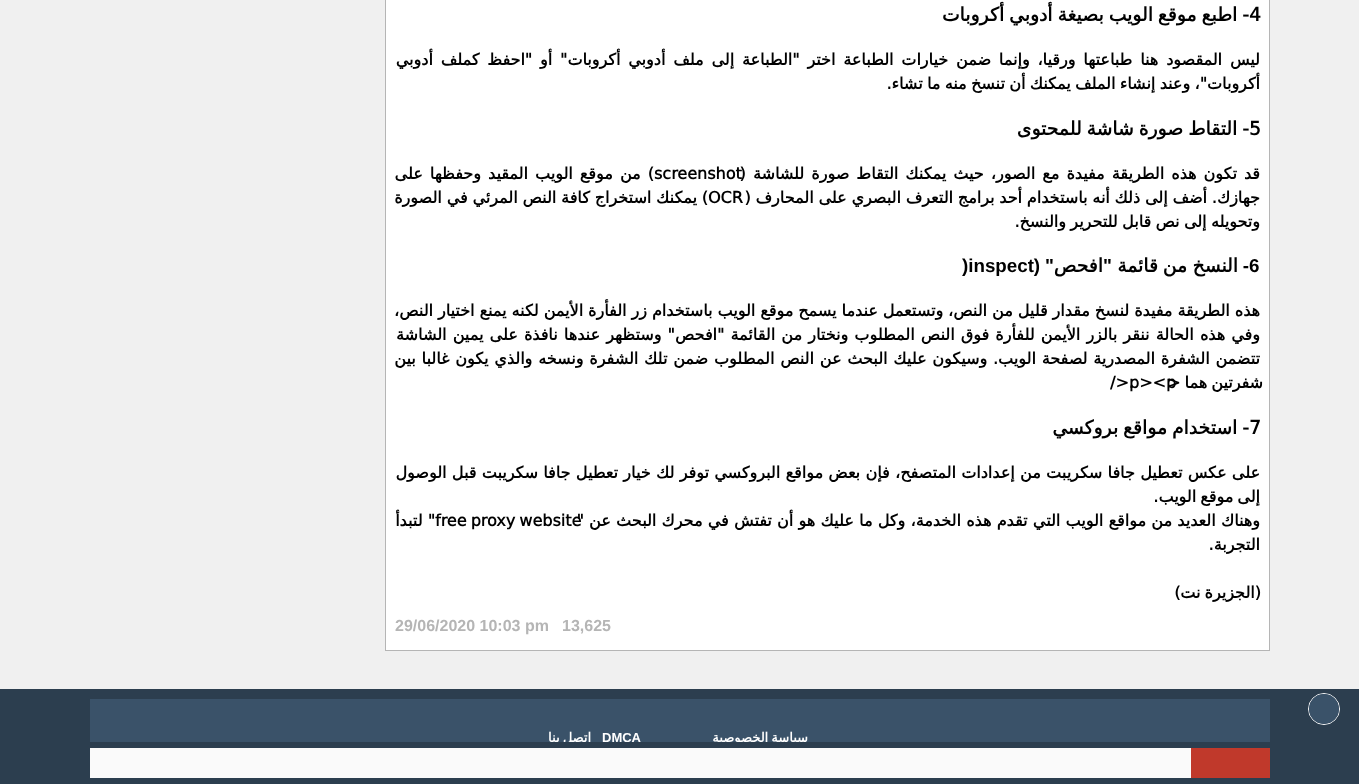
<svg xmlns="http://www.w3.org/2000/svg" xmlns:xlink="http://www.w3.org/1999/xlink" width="1359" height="784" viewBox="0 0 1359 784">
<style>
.cls-1{font:bold 18.75px DejaVu Sans;direction:rtl;fill:#000000}
.cls-2{font:bold 18.75px DejaVu Sans;fill:#000000}
.cls-3{font:bold 16px DejaVu Sans;direction:rtl;fill:#000000}
.cls-4{font:bold 16px DejaVu Sans;fill:#000000}
.cls-5{font:bold 18.75px Liberation Sans;fill:#000000}
.cls-6{font:bold 18.75px Liberation Sans;direction:rtl;fill:#000000}
.cls-7{font:bold 16px Liberation Sans;fill:#b5b5b5}
.cls-8{font:bold 13px DejaVu Sans;direction:rtl;fill:#ffffff}
.cls-9{font:bold 13px Liberation Sans;fill:#ffffff}
</style>
<rect width="100%" height="100%" fill="#f0f0f0"/>
<rect fill="#ffffff" stroke="#b5b5b5" x="385.5" y="-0.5" width="884" height="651"/>
<rect fill="#2c3e4f" x="0" y="689" width="1359" height="53"/>
<circle fill="none" stroke="#fbfbfc" cx="1324" cy="709" r="15.5"/>
<circle fill="#3a5269" cx="1324" cy="709" r="15"/>
<rect fill="#3a5269" x="90" y="699" width="1180" height="43"/>
<text class="cls-1" x="1249" y="21" word-spacing="-1">- اطبع موقع الويب بصيغة أدوبي أكروبات</text>
<text class="cls-2" x="1249" y="21">4</text>
<text class="cls-3"><tspan x="1260" y="65" word-spacing="2.75">ليس المقصود هنا طباعتها ورقيا، وإنما ضمن خيارات الطباعة اختر "الطباعة إلى ملف أدوبي أكروبات" أو "احفظ كملف أدوبي</tspan><tspan x="1260" y="89" word-spacing="-0.75">أكروبات"، وعند إنشاء الملف يمكنك أن تنسخ منه ما تشاء.</tspan></text>
<text class="cls-1" x="1249" y="135" word-spacing="-1">- التقاط صورة شاشة للمحتوى</text>
<text class="cls-2" x="1249" y="135">5</text>
<text class="cls-4" x="654" y="179">screenshot</text>
<text class="cls-3" x="1260" y="179" word-spacing="2">قد تكون هذه الطريقة مفيدة مع الصور، حيث يمكنك التقاط صورة للشاشة (</text>
<text class="cls-3" x="654" y="179" word-spacing="2">) من موقع الويب المقيد وحفظها على</text>
<text class="cls-3" x="1260" y="203" word-spacing="-0.25">جهازك. أضف إلى ذلك أنه باستخدام أحد برامج التعرف البصري على المحارف (</text>
<text class="cls-4" x="708" y="203">OCR</text>
<text class="cls-3" x="708" y="203" word-spacing="-0.25">) يمكنك استخراج كافة النص المرئي في الصورة</text>
<text class="cls-3" x="1260" y="227" word-spacing="-0.75">وتحويله إلى نص قابل للتحرير والنسخ.</text>
<text class="cls-5" x="1249" y="272">6</text>
<text class="cls-1" x="1238" y="272">النسخ</text>
<text class="cls-1" x="1158" y="272">قائمة</text>
<text class="cls-6" x="1112" y="272">"</text>
<text class="cls-1" x="1103" y="272">افحص</text>
<text class="cls-6" x="1054" y="272">" (</text>
<text class="cls-5" x="962" y="272">)inspect</text>
<text class="cls-6" x="1249" y="272">-</text>
<text class="cls-1" x="1187" y="272">من</text>
<text class="cls-3"><tspan x="1260" y="316" word-spacing="-0.1">هذه الطريقة مفيدة لنسخ مقدار قليل من النص، وتستعمل عندما يسمح موقع الويب باستخدام زر الفأرة الأيمن لكنه يمنع اختيار النص،</tspan><tspan x="1260" y="340" word-spacing="1.1">وفي هذه الحالة ننقر بالزر الأيمن للفأرة فوق النص المطلوب ونختار من القائمة "افحص" وستظهر عندها نافذة على يمين الشاشة</tspan><tspan x="1260" y="364" word-spacing="0.75">تتضمن الشفرة المصدرية لصفحة الويب. وسيكون عليك البحث عن النص المطلوب ضمن تلك الشفرة ونسخه والذي يكون غالبا بين</tspan></text>
<text class="cls-4" x="1110" y="388">/&gt;.</text>
<text class="cls-4" x="1129" y="388">p&gt;&lt;p</text>
<text class="cls-3" x="1263" y="388" word-spacing="-1">شفرتين هما &lt;</text>
<text class="cls-1" x="1249" y="434" word-spacing="-1">- استخدام مواقع بروكسي</text>
<text class="cls-2" x="1249" y="434">7</text>
<text class="cls-3"><tspan x="1260" y="478" word-spacing="0.25">على عكس تعطيل جافا سكريبت من إعدادات المتصفح، فإن بعض مواقع البروكسي توفر لك خيار تعطيل جافا سكريبت قبل الوصول</tspan><tspan x="1260" y="502" word-spacing="-1">إلى موقع الويب.</tspan></text>
<text class="cls-4" x="435" y="526" word-spacing="-1">free proxy website</text>
<text class="cls-3" x="1260" y="526" word-spacing="0.2">وهناك العديد من مواقع الويب التي تقدم هذه الخدمة، وكل ما عليك هو أن تفتش في محرك البحث عن "</text>
<text class="cls-3" x="435" y="526">" لتبدأ</text>
<text class="cls-3" x="1260" y="550">التجربة.</text>
<text class="cls-3" x="1261" y="598" word-spacing="-1">(الجزيرة نت)</text>
<text class="cls-7" x="562" y="631">13,625</text>
<text class="cls-7" x="395" y="631">29/06/2020 10:03 pm</text>
<text class="cls-8" x="808" y="742" word-spacing="-1">سياسة الخصوصية</text>
<text class="cls-9" x="602" y="742">DMCA</text>
<text class="cls-8" x="591" y="742" word-spacing="-1">اتصل بنا</text>
<rect fill="#2c3e4f" x="0" y="742" width="1359" height="42"/>
<rect fill="#fafafa" x="90" y="748" width="1101" height="30"/>
<rect fill="#c0392b" x="1191" y="748" width="79" height="30"/>
</svg>
